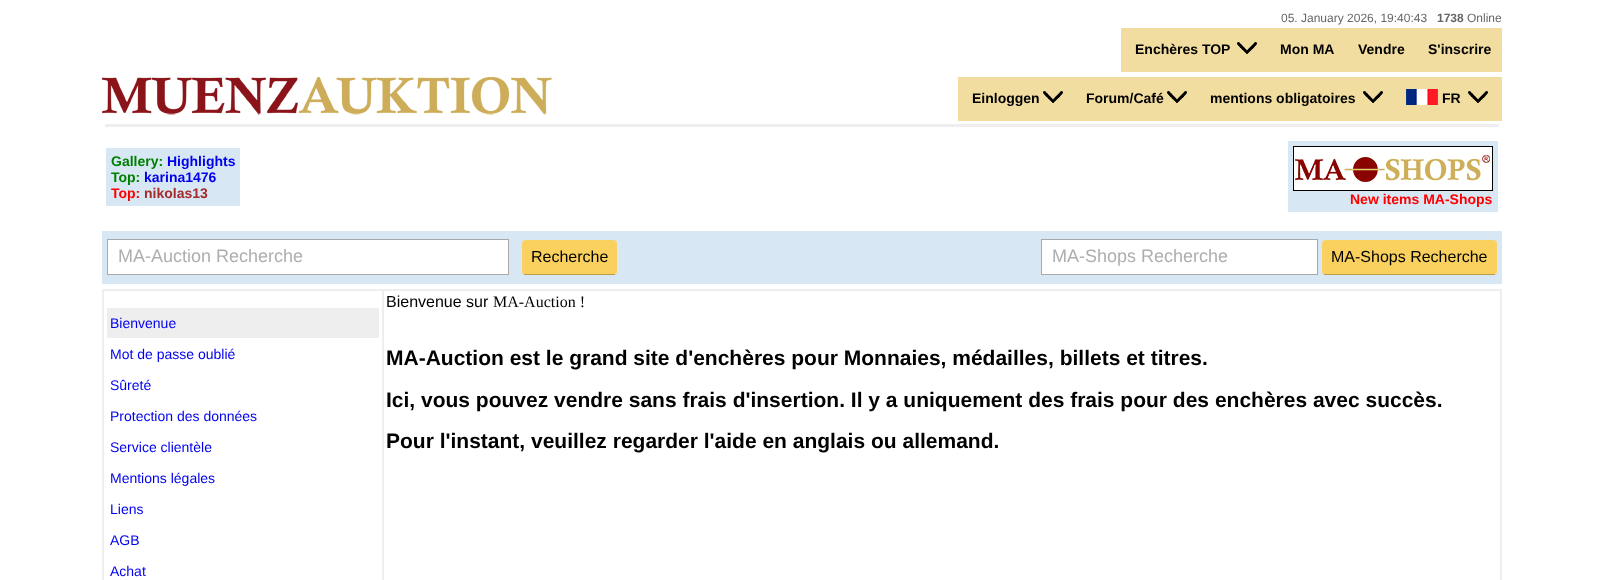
<svg xmlns="http://www.w3.org/2000/svg" xmlns:xlink="http://www.w3.org/1999/xlink" width="1603" height="580" viewBox="0 0 1603 580">
<style>
.cls-1{font:12px Liberation Sans;fill:#666666}
.cls-2{font:bold 12px Liberation Sans;fill:#666666}
.cls-3{font:bold 14px Liberation Sans;fill:#000000}
.cls-4{font:bold 14px Liberation Sans;fill:#008000}
.cls-5{font:bold 14px Liberation Sans;fill:#0000ee}
.cls-6{font:bold 14px Liberation Sans;fill:#ff0000}
.cls-7{font:bold 14px Liberation Sans;fill:#a52a2a}
.cls-8{font:18px Liberation Sans;fill:#aeaeae}
.cls-9{font:16px Liberation Sans;fill:#000000}
.cls-10{font:14px Liberation Sans;fill:#0000ee}
.cls-11{font:16px Liberation Serif;fill:#000000}
.cls-12{font:bold 21px Liberation Sans;fill:#000000}
</style>
<rect width="100%" height="100%" fill="#ffffff"/>
<rect fill="#f2dda0" x="1121" y="28" width="381" height="44"/>
<image xlink:href="image0.png" x="1237" y="42" width="20" height="12"/>
<image xlink:href="image1.png" x="102" y="77" width="450" height="38"/>
<rect fill="#f2dda0" x="958" y="77" width="544" height="44"/>
<image xlink:href="image0.png" x="1043" y="91" width="20" height="12"/>
<image xlink:href="image0.png" x="1167" y="91" width="20" height="12"/>
<image xlink:href="image0.png" x="1363" y="91" width="20" height="12"/>
<image xlink:href="image2.png" x="1406" y="89" width="32" height="16"/>
<image xlink:href="image0.png" x="1468" y="91" width="20" height="12"/>
<rect fill="#eeeeee" x="105" y="124" width="1394" height="3"/>
<rect fill="#d8e7f4" x="106" y="148" width="134" height="58"/>
<rect fill="#d8e7f4" x="1288" y="141" width="210" height="71"/>
<image xlink:href="image3.png" x="1293" y="146" width="200" height="45"/>
<rect fill="#d8e7f4" x="102" y="231" width="1400" height="53"/>
<rect fill="#ffffff" stroke="#a9a9a9" x="107.5" y="239.5" width="401" height="35"/>
<rect fill="#fad15f" x="522" y="240" width="95" height="35" rx="4"/>
<rect fill="#000000" fill-opacity="0.25" x="524" y="274" width="91" height="1"/>
<rect fill="#ffffff" stroke="#a9a9a9" x="1041.5" y="239.5" width="276" height="35"/>
<rect fill="#fad15f" x="1322" y="240" width="175" height="35" rx="4"/>
<rect fill="#000000" fill-opacity="0.25" x="1324" y="274" width="171" height="1"/>
<rect fill="#eeeeee" x="102" y="289" width="1400" height="291"/>
<rect fill="#ffffff" x="104" y="291" width="278" height="289"/>
<rect fill="#eeeeee" x="107" y="308" width="272" height="30"/>
<rect fill="#ffffff" x="384" y="291" width="1116" height="289"/>
<text class="cls-1" x="1281" y="22">05. January 2026, 19:40:43</text>
<text class="cls-2" x="1437" y="22">1738</text>
<text class="cls-1" x="1467" y="22">Online</text>
<text class="cls-3" x="1135" y="54">Enchères TOP</text>
<text class="cls-3" x="1280" y="54">Mon MA</text>
<text class="cls-3" x="1358" y="54">Vendre</text>
<text class="cls-3" x="1428" y="54">S'inscrire</text>
<text class="cls-3" x="972" y="103">Einloggen</text>
<text class="cls-3" x="1086" y="103">Forum/Café</text>
<text class="cls-3" x="1210" y="103">mentions obligatoires</text>
<text class="cls-3" x="1442" y="103">FR</text>
<text class="cls-4" x="111" y="166">Gallery:</text>
<text class="cls-5" x="167" y="166">Highlights</text>
<text class="cls-4" x="111" y="182">Top:</text>
<text class="cls-5" x="144" y="182">karina1476</text>
<text class="cls-6" x="111" y="198">Top:</text>
<text class="cls-7" x="144" y="198">nikolas13</text>
<text class="cls-6" x="1350" y="204">New items MA-Shops</text>
<text class="cls-8" x="118" y="262">MA-Auction Recherche</text>
<text class="cls-9" x="531" y="262">Recherche</text>
<text class="cls-8" x="1052" y="262">MA-Shops Recherche</text>
<text class="cls-9" x="1331" y="262">MA-Shops Recherche</text>
<text class="cls-10" x="110" y="328">Bienvenue</text>
<text class="cls-10" x="110" y="359">Mot de passe oublié</text>
<text class="cls-10" x="110" y="390">Sûreté</text>
<text class="cls-10" x="110" y="421">Protection des données</text>
<text class="cls-10" x="110" y="452">Service clientèle</text>
<text class="cls-10" x="110" y="483">Mentions légales</text>
<text class="cls-10" x="110" y="514">Liens</text>
<text class="cls-10" x="110" y="545">AGB</text>
<text class="cls-10" x="110" y="576">Achat</text>
<text class="cls-9" x="386" y="307">Bienvenue sur</text>
<text class="cls-11" x="493" y="307">MA-Auction !</text>
<text class="cls-12" x="386" y="365">MA-Auction est le grand site d'enchères pour Monnaies, médailles, billets et titres.</text>
<text class="cls-12"><tspan x="386" y="407">Ici, vous pouvez vendre sans frais d'insertion. Il y a uniquement des frais pour des enchères avec succès.</tspan><tspan x="386" y="448">Pour l'instant, veuillez regarder l'aide en anglais ou allemand.</tspan></text>
</svg>
